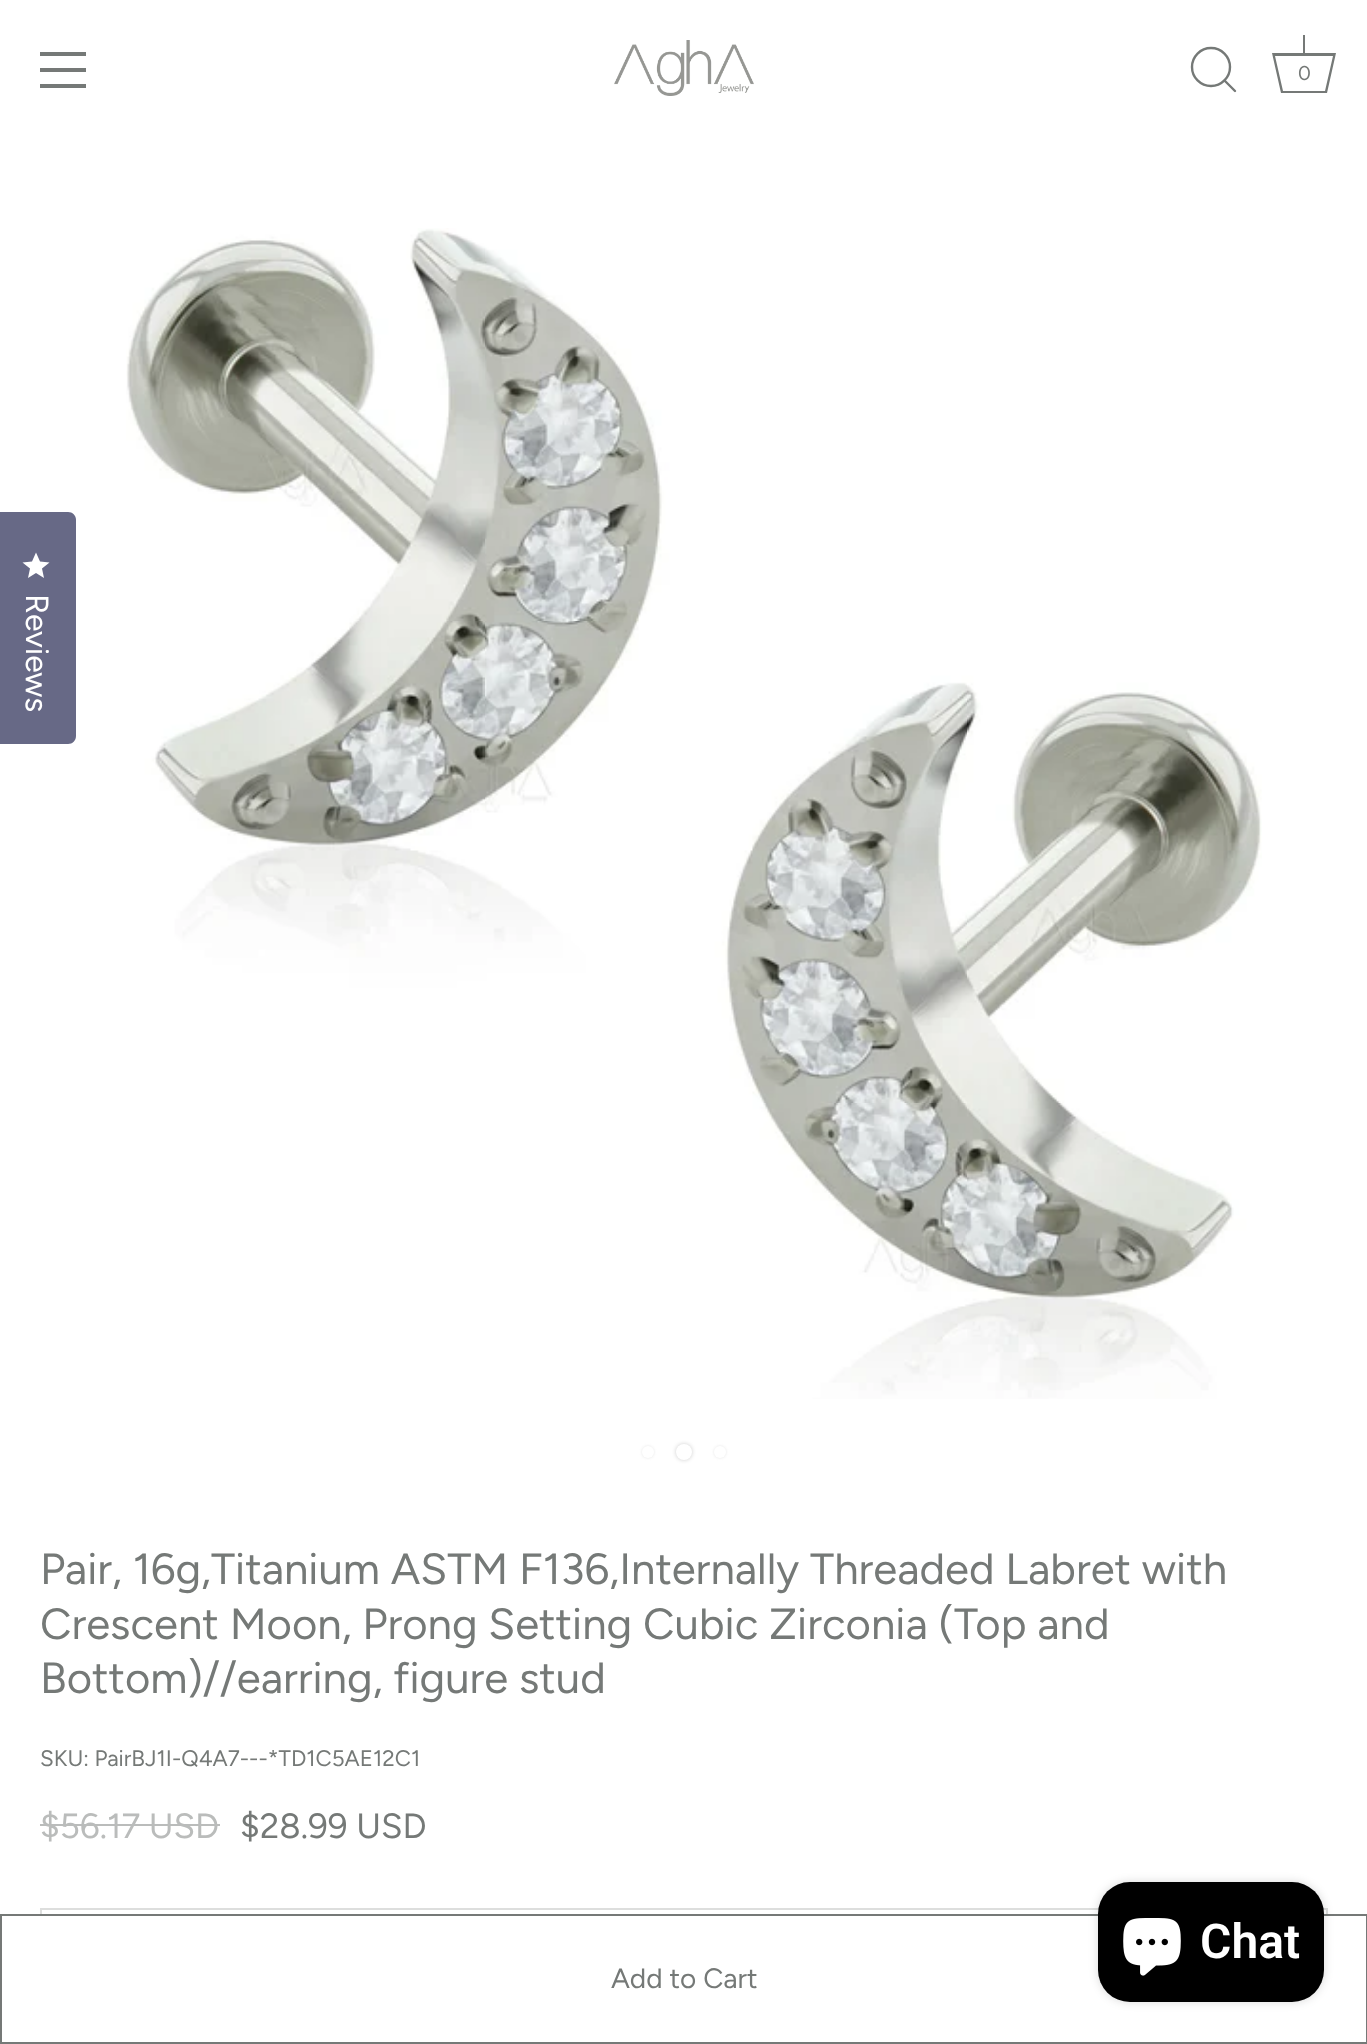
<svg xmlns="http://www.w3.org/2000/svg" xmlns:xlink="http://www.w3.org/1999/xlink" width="1367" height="2044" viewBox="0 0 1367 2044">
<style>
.cls-1{font:20px Figtree;fill:#757977}
.cls-2{font:32px Figtree;fill:#ffffff}
.cls-3{font:43.7px Figtree;fill:#757977}
.cls-4{font:22.4px Figtree;fill:#757977}
.cls-5{font:35px Figtree;fill:#babcbb}
.cls-6{font:35px Figtree;fill:#757977}
.cls-7{font:28px Figtree;fill:#757977}
.cls-8{font:600 48px Roboto;fill:#ffffff}
</style>
<rect width="100%" height="100%" fill="#ffffff"/>
<rect fill="#757977" x="40" y="52" width="46" height="4"/>
<rect fill="#757977" x="40" y="68" width="46" height="4"/>
<rect fill="#757977" x="40" y="84" width="46" height="4"/>
<image xlink:href="image0.png" x="614" y="40" width="140" height="56"/>
<circle fill="none" stroke="#757977" stroke-width="2.4" cx="1211" cy="67" r="19"/>
<path fill="none" stroke="#757977" stroke-width="2.4" stroke-linecap="round" stroke-linejoin="round" d="M1235 91L1224.5 80.5"/>
<rect fill="#757977" x="1303" y="35" width="2" height="18"/>
<path fill="#757977" d="M1333 56L1325 91H1283L1275 56H1333M1336 53H1272L1281 93H1327Z"/>
<path fill="#676986" d="M-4 512H68C72.5 512 76 515.5 76 520V736C76 740.5 72.5 744 68 744H-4Z"/>
<path fill="#ffffff" d="M36 573L44 578L42 568.5L49.5 562.5L40 561.5L36 552.5L32 561.5L22.5 562.5L30 568.5L28 578Z"/>
<image xlink:href="image1.png" x="126" y="228" width="1136" height="1171"/>
<rect fill="#808080" fill-opacity="0.2" filter="blur(1.5px)" x="642" y="1446" width="12" height="12" rx="6"/>
<circle fill="#ffffff" cx="648" cy="1452" r="6"/>
<rect fill="#000000" fill-opacity="0.2" filter="blur(2px)" x="676" y="1444" width="16" height="16" rx="8"/>
<circle fill="#ffffff" cx="684" cy="1452" r="8"/>
<rect fill="#808080" fill-opacity="0.2" filter="blur(1.5px)" x="714" y="1446" width="12" height="12" rx="6"/>
<circle fill="#ffffff" cx="720" cy="1452" r="6"/>
<rect fill="#babcbb" x="40" y="1824" width="180" height="2"/>
<rect fill="none" stroke="#dddedd" stroke-width="2" x="41" y="1909" width="1286" height="84"/>
<rect fill="#ffffff" x="40" y="1916" width="1288" height="78"/>
<rect fill="none" stroke="#757977" stroke-width="2" x="1" y="1915" width="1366" height="128"/>
<rect fill="#000000" fill-opacity="0.15" filter="blur(5px)" x="1098" y="1882" width="226" height="120" rx="32"/>
<rect fill="#000000" x="1098" y="1882" width="226" height="120" rx="32"/>
<image xlink:href="image2.png" x="1123" y="1918" width="58" height="58"/>
<text class="cls-1" x="1298" y="80">0</text>
<text class="cls-2" x="26" y="594" transform="rotate(90.1 26 594)">Reviews</text>
<text class="cls-3"><tspan x="40" y="1584">Pair, 16g,Titanium ASTM F136,Internally Threaded Labret with</tspan><tspan x="40" y="1639">Crescent Moon, Prong Setting Cubic Zirconia (Top and</tspan><tspan x="40" y="1693">Bottom)//earring, figure stud</tspan></text>
<text class="cls-4" x="40" y="1766">SKU: PairBJ1I-Q4A7---*TD1C5AE12C1</text>
<text class="cls-5" x="40" y="1838">$56.17 USD</text>
<text class="cls-6" x="240" y="1838">$28.99 USD</text>
<text class="cls-7" x="611" y="1988">Add to Cart</text>
<text class="cls-8" x="1200" y="1958">Chat</text>
</svg>
